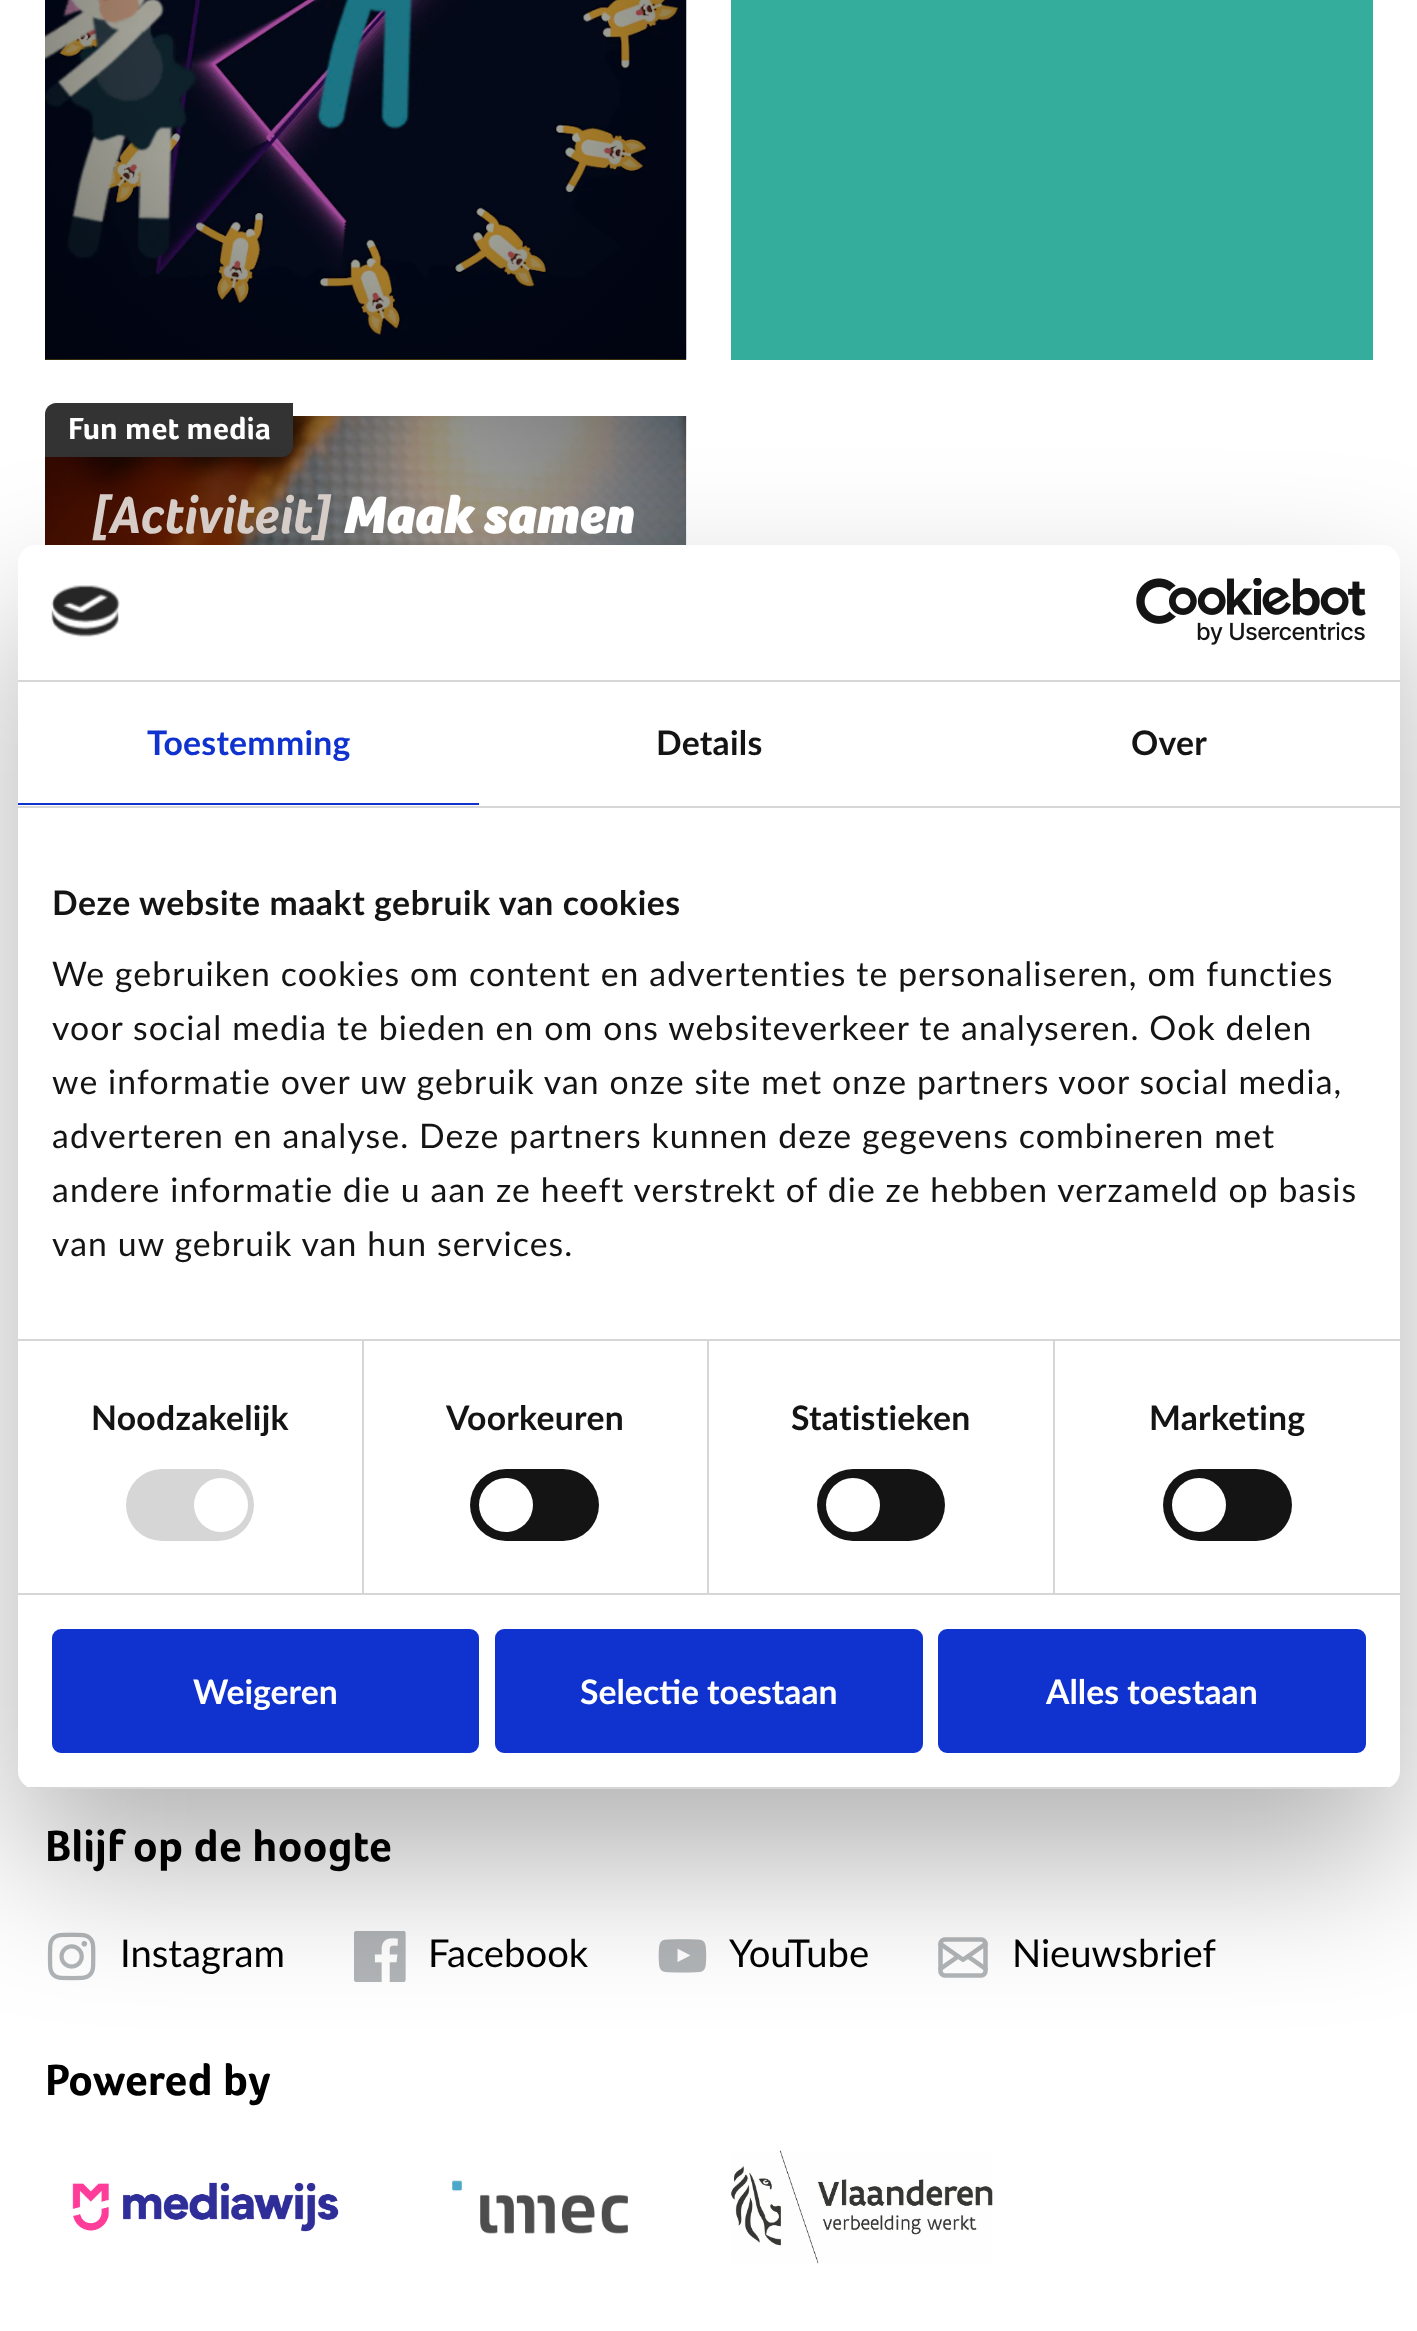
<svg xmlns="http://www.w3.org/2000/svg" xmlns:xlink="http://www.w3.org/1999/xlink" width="1417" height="2331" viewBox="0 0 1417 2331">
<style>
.cls-1{font:bold 31.5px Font;fill:#ffffff}
.cls-2{font:italic bold 54px Font;fill:#d7cdc8}
.cls-3{font:italic 900 54px Font;fill:#ffffff}
.cls-4{font:bold 45px Font;fill:#000000}
.cls-5{font:38.25px Lato;fill:#000000}
.cls-6{font:bold 33.75px Lato;letter-spacing:0.25px;fill:#1032cf}
.cls-7{font:bold 33.75px Lato;letter-spacing:0.25px;fill:#141414}
.cls-8{font:bold 33.75px Lato;letter-spacing:0.55px;fill:#141414}
.cls-9{font:33.75px Lato;letter-spacing:1.12px;fill:#141414}
.cls-10{font:bold 33.75px Lato;fill:#ffffff}
</style>
<defs>
<radialGradient id="g1" gradientUnits="userSpaceOnUse" cx="0" cy="0" r="1" gradientTransform="matrix(453 0 0 477 366 23)"><stop offset="0.5" stop-color="#000000" stop-opacity="0"/><stop offset="1" stop-color="#000000" stop-opacity="0.3"/></radialGradient>
<clipPath id="clip1"><rect x="18" y="545" width="1382" height="1244" rx="18"/></clipPath>
</defs>
<rect width="100%" height="100%" fill="#ffffff"/>
<rect fill="#a68a00" x="45" y="359" width="641" height="1"/>
<image xlink:href="image0.png" x="45" y="0" width="642" height="360"/>
<rect fill="url(#g1)" x="45" y="0" width="641" height="360"/>
<rect fill="#34ad9c" x="731" y="0" width="642" height="360"/>
<image xlink:href="image1.png" x="45" y="416" width="642" height="129"/>
<path fill="#333333" d="M56 403H293V446C293 452 288 457 282 457H45V414C45 408 50 403 56 403Z"/>
<image xlink:href="image2.png" x="47" y="1932" width="49" height="49"/>
<image xlink:href="image3.png" x="354" y="1931" width="52" height="51"/>
<image xlink:href="image4.png" x="658" y="1939" width="49" height="34"/>
<image xlink:href="image5.png" x="938" y="1937" width="50" height="41"/>
<image xlink:href="image6.png" x="72" y="2182" width="267" height="50"/>
<image xlink:href="image7.png" x="452" y="2180" width="176" height="54"/>
<image xlink:href="image8.png" x="731" y="2150" width="262" height="114"/>
<rect fill="#000000" fill-opacity="0.3" filter="blur(76.5px)" x="18" y="617" width="1382" height="1244" rx="18"/>
<rect fill="#ffffff" x="18" y="545" width="1382" height="1244" rx="18"/>
<rect fill="#d6d6d6" x="18" y="680" width="1382" height="2"/>
<image xlink:href="image9.png" x="51" y="585" width="69" height="52"/>
<image xlink:href="image10.png" x="1136" y="578" width="230" height="67"/>
<rect fill="#d6d6d6" x="18" y="806" width="1382" height="2"/>
<rect fill="#1032cf" x="18" y="803" width="461" height="2"/>
<rect fill="#d6d6d6" x="18" y="1339" width="1382" height="2"/>
<rect fill="#d6d6d6" x="18" y="1593" width="1382" height="2"/>
<rect fill="#d6d6d6" x="362" y="1341" width="2" height="252"/>
<rect fill="#d6d6d6" x="126" y="1469" width="128" height="72" rx="36"/>
<circle fill="#ffffff" cx="221" cy="1505" r="27"/>
<rect fill="#d6d6d6" x="707" y="1341" width="2" height="252"/>
<rect fill="#141414" x="470" y="1469" width="129" height="72" rx="36"/>
<circle fill="#ffffff" cx="506" cy="1505" r="27"/>
<rect fill="#d6d6d6" x="1053" y="1341" width="2" height="252"/>
<rect fill="#141414" x="817" y="1469" width="128" height="72" rx="36"/>
<circle fill="#ffffff" cx="853" cy="1505" r="27"/>
<rect fill="#141414" x="1163" y="1469" width="129" height="72" rx="36"/>
<circle fill="#ffffff" cx="1199" cy="1505" r="27"/>
<g clip-path="url(#clip1)">
<rect fill="#d6d6d6" x="28" y="1787" width="1362" height="2"/>
</g>
<rect fill="#1032cf" stroke="#1032cf" stroke-width="5" x="54.5" y="1631.5" width="422" height="119" rx="6.5"/>
<rect fill="#1032cf" stroke="#1032cf" stroke-width="5" x="497.5" y="1631.5" width="423" height="119" rx="6.5"/>
<rect fill="#1032cf" stroke="#1032cf" stroke-width="5" x="940.5" y="1631.5" width="423" height="119" rx="6.5"/>
<text class="cls-1" x="68" y="439">Fun met media</text>
<text class="cls-2" x="90" y="533">[Activiteit]</text>
<text class="cls-3" x="343" y="533">Maak samen</text>
<text class="cls-4" x="45" y="1861">Blijf op de hoogte</text>
<text class="cls-5" x="120" y="1967">Instagram</text>
<text class="cls-5" x="428" y="1967">Facebook</text>
<text class="cls-5" x="729" y="1967">YouTube</text>
<text class="cls-5" x="1012" y="1967">Nieuwsbrief</text>
<text class="cls-4" x="45" y="2095">Powered by</text>
<text class="cls-6" x="147" y="755">Toestemming</text>
<text class="cls-7" x="656" y="755">Details</text>
<text class="cls-7" x="1131" y="755">Over</text>
<text class="cls-8" x="52" y="915">Deze website maakt gebruik van cookies</text>
<text class="cls-9"><tspan x="52" y="986">We gebruiken cookies om content en advertenties te personaliseren, om functies</tspan><tspan x="52" y="1040">voor social media te bieden en om ons websiteverkeer te analyseren. Ook delen</tspan><tspan x="52" y="1094">we informatie over uw gebruik van onze site met onze partners voor social media,</tspan><tspan x="52" y="1148">adverteren en analyse. Deze partners kunnen deze gegevens combineren met</tspan><tspan x="52" y="1202">andere informatie die u aan ze heeft verstrekt of die ze hebben verzameld op basis</tspan><tspan x="52" y="1256">van uw gebruik van hun services.</tspan></text>
<text class="cls-7" x="91" y="1430">Noodzakelijk</text>
<text class="cls-7" x="446" y="1430">Voorkeuren</text>
<text class="cls-7" x="791" y="1430">Statistieken</text>
<text class="cls-7" x="1149" y="1430">Marketing</text>
<text class="cls-10" x="193" y="1704">Weigeren</text>
<text class="cls-10" x="580" y="1704">Selectie toestaan</text>
<text class="cls-10" x="1046" y="1704">Alles toestaan</text>
</svg>
